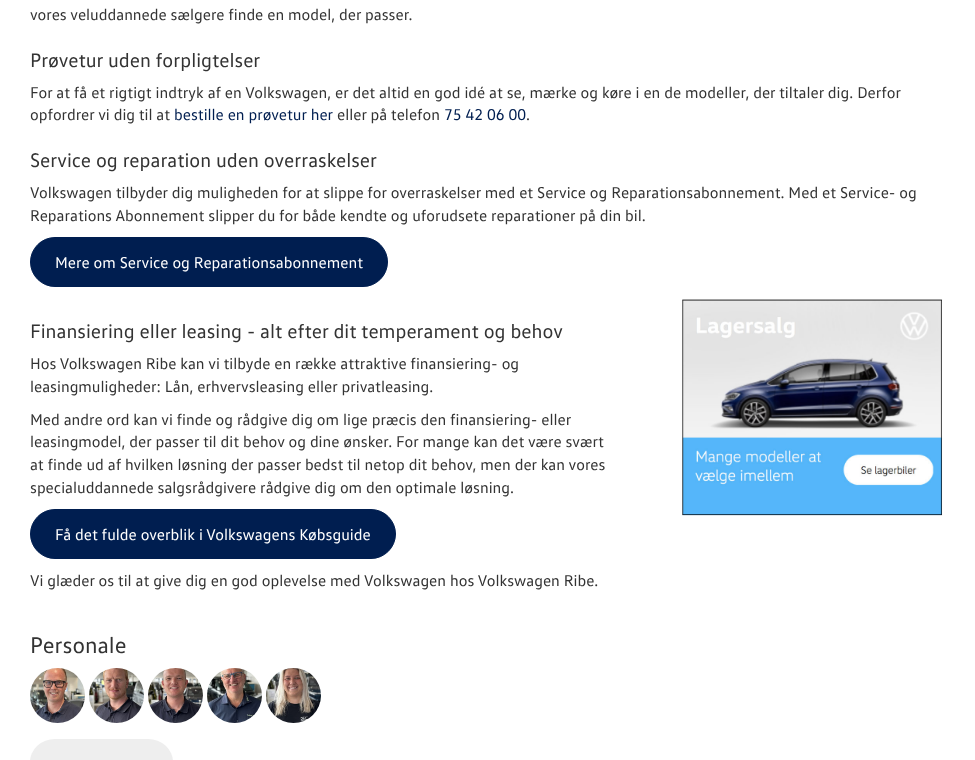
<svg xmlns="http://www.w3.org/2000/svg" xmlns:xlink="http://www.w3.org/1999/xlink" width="975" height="760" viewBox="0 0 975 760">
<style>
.cls-1{font:16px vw;fill:#333333}
.cls-2{font:20px vw;fill:#333333}
.cls-3{font:16px vw;fill:#001e50}
.cls-4{font:16px vw;fill:#ffffff}
.cls-5{font:23px vw;fill:#333333}
</style>
<rect width="100%" height="100%" fill="#ffffff"/>
<rect fill="#001e50" stroke="#001e50" x="30.5" y="237.5" width="357" height="49" rx="24.5"/>
<rect fill="#001e50" stroke="#001e50" x="30.5" y="509.5" width="365" height="49" rx="24.5"/>
<image xlink:href="image0.png" x="682" y="299" width="261" height="217"/>
<image xlink:href="image1.png" x="30" y="668" width="55" height="55"/>
<image xlink:href="image2.png" x="89" y="668" width="55" height="55"/>
<image xlink:href="image3.png" x="148" y="668" width="55" height="55"/>
<image xlink:href="image4.png" x="207" y="668" width="55" height="55"/>
<image xlink:href="image5.png" x="266" y="668" width="55" height="55"/>
<rect fill="#eeeeee" x="30" y="739" width="143" height="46" rx="25"/>
<text class="cls-1" x="30" y="20">vores veluddannede sælgere finde en model, der passer.</text>
<text class="cls-2" x="30" y="67">Prøvetur uden forpligtelser</text>
<text class="cls-1"><tspan x="30" y="98">For at få et rigtigt indtryk af en Volkswagen, er det altid en god idé at se, mærke og køre i en de modeller, der tiltaler dig. Derfor</tspan><tspan x="30" y="120">opfordrer vi dig til at</tspan></text>
<text class="cls-3" x="174" y="120">bestille en prøvetur her</text>
<text class="cls-1" x="337" y="120">eller på telefon</text>
<text class="cls-3" x="444" y="120">75 42 06 00</text>
<text class="cls-1" x="526" y="120">.</text>
<text class="cls-2" x="30" y="167">Service og reparation uden overraskelser</text>
<text class="cls-1"><tspan x="30" y="198">Volkswagen tilbyder dig muligheden for at slippe for overraskelser med et Service og Reparationsabonnement. Med et Service- og</tspan><tspan x="30" y="221">Reparations Abonnement slipper du for både kendte og uforudsete reparationer på din bil.</tspan></text>
<text class="cls-4" x="55" y="268">Mere om Service og Reparationsabonnement</text>
<text class="cls-2" x="30" y="338">Finansiering eller leasing - alt efter dit temperament og behov</text>
<text class="cls-1"><tspan x="30" y="369">Hos Volkswagen Ribe kan vi tilbyde en række attraktive finansiering- og</tspan><tspan x="30" y="392">leasingmuligheder: Lån, erhvervsleasing eller privatleasing.</tspan></text>
<text class="cls-1"><tspan x="30" y="425">Med andre ord kan vi finde og rådgive dig om lige præcis den finansiering- eller</tspan><tspan x="30" y="447">leasingmodel, der passer til dit behov og dine ønsker. For mange kan det være svært</tspan><tspan x="30" y="470">at finde ud af hvilken løsning der passer bedst til netop dit behov, men der kan vores</tspan><tspan x="30" y="493">specialuddannede salgsrådgivere rådgive dig om den optimale løsning.</tspan></text>
<text class="cls-4" x="55" y="540">Få det fulde overblik i Volkswagens Købsguide</text>
<text class="cls-1" x="30" y="586">Vi glæder os til at give dig en god oplevelse med Volkswagen hos Volkswagen Ribe.</text>
<text class="cls-5" x="30" y="653">Personale</text>
</svg>
